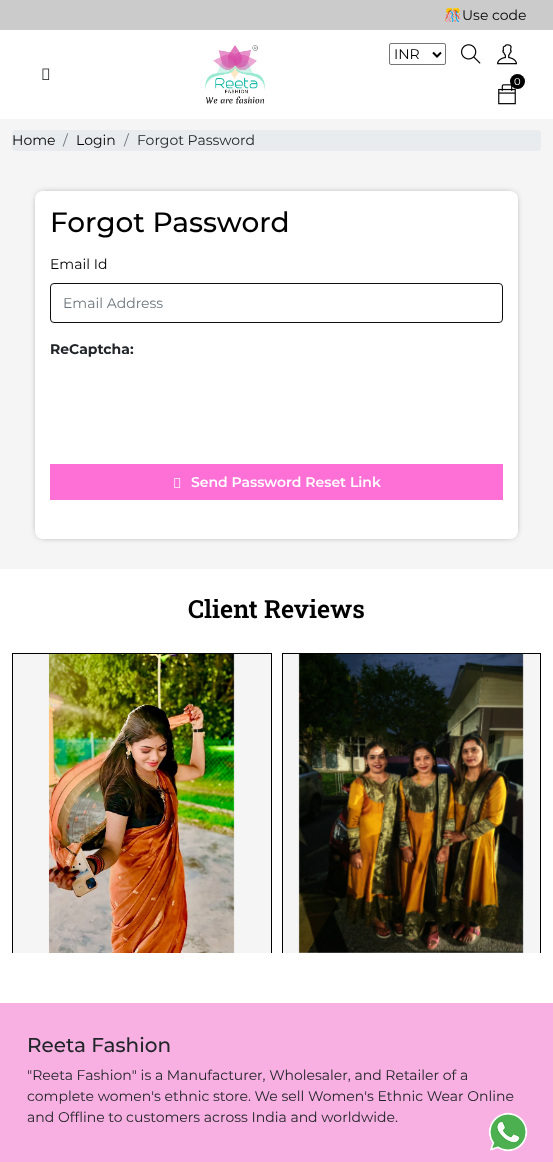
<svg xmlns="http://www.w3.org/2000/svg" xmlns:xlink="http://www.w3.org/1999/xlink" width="553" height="1162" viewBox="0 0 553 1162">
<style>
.cls-1{font:14px Noto Color Emoji;fill:#000000}
.cls-2{font:14px Montserrat;fill:#000000}
.cls-3{font:10px Montserrat;fill:#ffffff}
.cls-4{font:14px Montserrat;fill:#6c757d}
.cls-5{font:14px Montserrat;fill:#212529}
.cls-6{font:500 28px Montserrat;fill:#000000}
.cls-7{font:bold 14px Montserrat;fill:#212529}
.cls-8{font:600 14px Montserrat;fill:#ffffff}
.cls-9{font:600 25px Roboto Slab;fill:#000000}
.cls-10{font:500 20px Montserrat;fill:#212529}
</style>
<defs>
<clipPath id="clip1"><rect x="24" y="8" width="505" height="14"/></clipPath>
</defs>
<rect width="100%" height="100%" fill="#ffffff"/>
<rect fill="#cbcbcb" x="0" y="0" width="553" height="30"/>
<image xlink:href="image0.png" x="42" y="68" width="8" height="12"/>
<image xlink:href="image1.png" x="205" y="45" width="60" height="59"/>
<rect fill="none" stroke="#767676" x="389.5" y="43.5" width="56" height="21" rx="1.5"/>
<path fill="none" stroke="#000000" stroke-width="2" d="M433 52.5L437 56.5L441 52.5"/>
<image xlink:href="image2.png" x="461" y="44" width="20" height="20"/>
<image xlink:href="image3.png" x="497" y="44" width="20" height="21"/>
<image xlink:href="image4.png" x="498" y="84" width="18" height="21"/>
<circle fill="#000000" cx="517.5" cy="81.5" r="7.5"/>
<rect fill="#f5f5f5" x="0" y="119" width="553" height="450"/>
<rect fill="#e9ecef" x="12" y="130" width="529" height="21" rx="4"/>
<rect fill="#000000" filter="blur(4px)" x="40" y="196" width="473" height="338" rx="3"/>
<rect fill="#ffffff" x="35" y="191" width="483" height="348" rx="8"/>
<rect fill="none" stroke="#0f0f0f" x="50.5" y="283.5" width="452" height="39" rx="3.5"/>
<rect fill="#ff70d7" x="50" y="464" width="453" height="36"/>
<image xlink:href="image5.png" x="174" y="478" width="7" height="10"/>
<rect fill="#f5f5f5" x="13" y="654" width="258" height="299"/>
<rect fill="#000000" x="12" y="653" width="260" height="1"/>
<rect fill="#000000" x="271" y="653" width="1" height="300"/>
<rect fill="#000000" x="12" y="653" width="1" height="300"/>
<image xlink:href="image6.png" x="48" y="654" width="187" height="299"/>
<rect fill="#f5f5f5" x="283" y="654" width="257" height="299"/>
<rect fill="#000000" x="282" y="653" width="259" height="1"/>
<rect fill="#000000" x="540" y="653" width="1" height="300"/>
<rect fill="#000000" x="282" y="653" width="1" height="300"/>
<image xlink:href="image7.png" x="298" y="654" width="226" height="299"/>
<rect fill="#f7b0e1" x="0" y="1003" width="553" height="159"/>
<image xlink:href="image8.png" x="488" y="1112" width="40" height="40"/>
<g clip-path="url(#clip1)">
<text class="cls-1" x="444" y="20">🎊</text>
</g>
<text class="cls-2" x="462" y="20">Use code</text>
<text class="cls-2" x="394" y="59">INR</text>
<text class="cls-3" x="514" y="85">0</text>
<text class="cls-2" x="12" y="145">Home</text>
<text class="cls-4" x="63" y="145">/</text>
<text class="cls-2" x="76" y="145">Login</text>
<text class="cls-4" x="124" y="145">/</text>
<text class="cls-5" x="137" y="145">Forgot Password</text>
<text class="cls-6" x="50" y="232">Forgot Password</text>
<text class="cls-2" x="50" y="269">Email Id</text>
<text class="cls-4" x="63" y="308">Email Address</text>
<text class="cls-7" x="50" y="354">ReCaptcha:</text>
<text class="cls-8" x="191" y="487">Send Password Reset Link</text>
<text class="cls-9" x="188" y="618">Client Reviews</text>
<text class="cls-10" x="27" y="1052">Reeta Fashion</text>
<text class="cls-5"><tspan x="27" y="1080">"Reeta Fashion" is a Manufacturer, Wholesaler, and Retailer of a</tspan><tspan x="27" y="1101">complete women's ethnic store. We sell Women's Ethnic Wear Online</tspan><tspan x="27" y="1122">and Offline to customers across India and worldwide.</tspan></text>
</svg>
